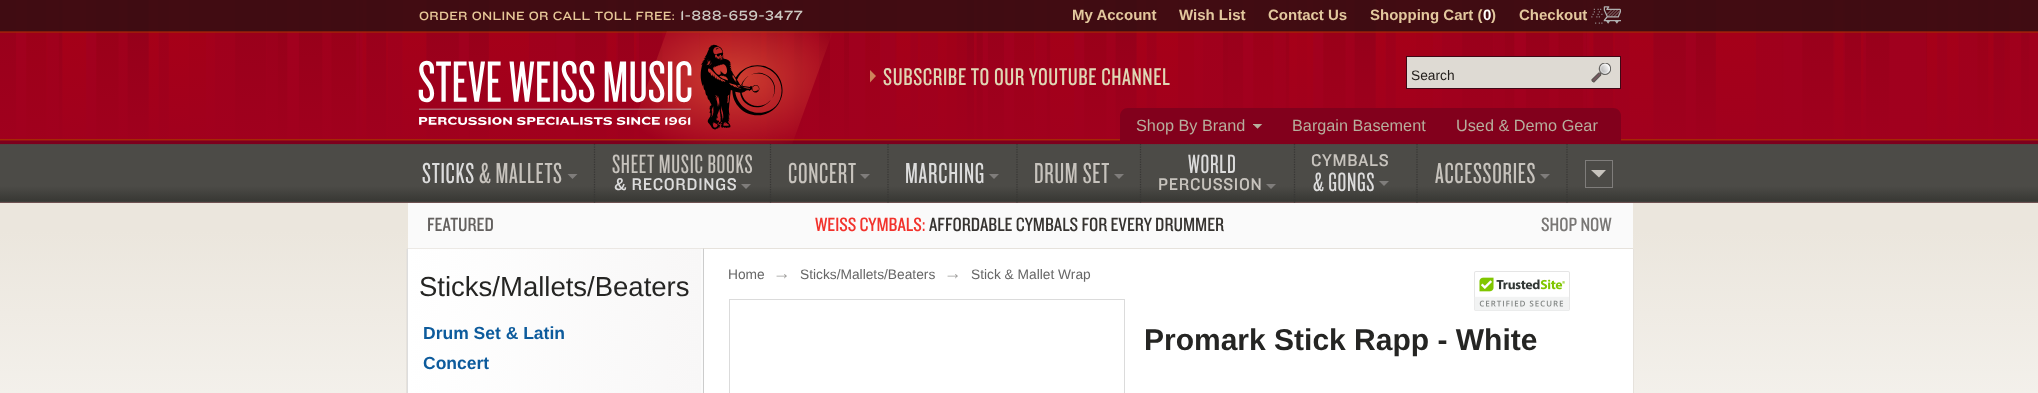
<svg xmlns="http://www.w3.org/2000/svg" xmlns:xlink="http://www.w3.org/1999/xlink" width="2038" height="393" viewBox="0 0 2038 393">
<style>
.cls-1{font:bold 15px Liberation Sans;fill:#e3c89e}
.cls-2{font:bold 15px Liberation Sans;fill:#ffffff}
.cls-3{font:13.75px Liberation Sans;fill:#201c19}
.cls-4{font:16.25px Liberation Sans;fill:#b7ae9d}
.cls-5{font:30px 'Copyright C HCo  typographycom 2';letter-spacing:0.75px;fill:#dcdcdc}
.cls-6{font:30px 'Copyright C HCo  typographycom 2';letter-spacing:0.75px;fill:#c7c3bd}
.cls-7{font:27.5px 'Copyright C HCo  typographycom 2';letter-spacing:0.7px;fill:#c7c3bd}
.cls-8{font:17.5px 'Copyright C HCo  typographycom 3';letter-spacing:0.7px;fill:#dcdcdc}
.cls-9{font:27.5px 'Copyright C HCo  typographycom 2';letter-spacing:0.7px;fill:#dcdcdc}
.cls-10{font:17.5px 'Copyright C HCo  typographycom 3';letter-spacing:0.7px;fill:#c7c3bd}
.cls-11{font:12.5px 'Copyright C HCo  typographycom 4';letter-spacing:0.3px;fill:#e7c898}
.cls-12{font:13.75px 'Copyright C HCo  typographycom 4';letter-spacing:0.3px;fill:#cecbc4}
.cls-13{font:25px 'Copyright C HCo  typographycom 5';letter-spacing:0.6px;fill:#e0d7b5}
.cls-14{font:20px 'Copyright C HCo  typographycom';fill:#63605e}
.cls-15{font:20px 'Copyright C HCo  typographycom';fill:#f2322c}
.cls-16{font:20px 'Copyright C HCo  typographycom';fill:#363330}
.cls-17{font:20px 'Copyright C HCo  typographycom';fill:#797775}
.cls-18{font:27.5px Liberation Sans;fill:#252523}
.cls-19{font:bold 17.5px Liberation Sans;fill:#0d5b9c}
.cls-20{font:13.75px Liberation Sans;fill:#666666}
.cls-21{font:17.5px Liberation Sans;fill:#a2a19f}
.cls-22{font:bold 30px Liberation Sans;fill:#252523}
</style>
<defs>
<linearGradient id="g1" gradientUnits="userSpaceOnUse" x1="1019" y1="0" x2="1019" y2="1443"><stop offset="0.16" stop-color="#ebe6dd"/><stop offset="0.44" stop-color="#ffffff"/></linearGradient>
</defs>
<rect width="100%" height="100%" fill="#ffffff"/>
<rect fill="url(#g1)" x="0" y="202" width="2038" height="191"/>
<image xlink:href="image0.png" x="0" y="0" width="2038" height="203"/>
<image xlink:href="image1.png" x="1591" y="6" width="30" height="18"/>
<rect fill="#dedad3" stroke="#3f0715" x="1406.5" y="56.5" width="214" height="32"/>
<image xlink:href="image2.png" x="1591" y="63" width="20" height="20"/>
<path fill="#82001c" d="M1128 108H1613C1617.5 108 1621 111.5 1621 116V144H1120V116C1120 111.5 1123.5 108 1128 108Z"/>
<image xlink:href="image3.png" x="1253" y="124" width="10" height="5"/>
<path fill="none" stroke="#373634" stroke-width="1.2" stroke-dasharray="1.25 1.25" d="M594.5 144V202.5"/>
<path fill="#7f7d7b" d="M567.5 174H577.5L572.5 179Z"/>
<path fill="none" stroke="#373634" stroke-width="1.2" stroke-dasharray="1.25 1.25" d="M770.5 144V202.5"/>
<path fill="#7f7d7b" d="M741 184H751L746 189Z"/>
<path fill="none" stroke="#373634" stroke-width="1.2" stroke-dasharray="1.25 1.25" d="M888 144V202.5"/>
<path fill="#7f7d7b" d="M860 174H870L865 179Z"/>
<path fill="none" stroke="#373634" stroke-width="1.2" stroke-dasharray="1.25 1.25" d="M1017 144V202.5"/>
<path fill="#7f7d7b" d="M989 174H999L994 179Z"/>
<path fill="none" stroke="#373634" stroke-width="1.2" stroke-dasharray="1.25 1.25" d="M1140.5 144V202.5"/>
<path fill="#7f7d7b" d="M1114 174H1124L1119 179Z"/>
<path fill="none" stroke="#373634" stroke-width="1.2" stroke-dasharray="1.25 1.25" d="M1294.5 144V202.5"/>
<path fill="#7f7d7b" d="M1266 184H1276L1271 189Z"/>
<path fill="none" stroke="#373634" stroke-width="1.2" stroke-dasharray="1.25 1.25" d="M1417 144V202.5"/>
<path fill="#7f7d7b" d="M1379 181H1389L1384 186Z"/>
<path fill="none" stroke="#373634" stroke-width="1.2" stroke-dasharray="1.25 1.25" d="M1567 144V202.5"/>
<path fill="#7f7d7b" d="M1540 174H1550L1545 179Z"/>
<rect fill="none" stroke="#7f7d7b" x="1585.5" y="160.5" width="27" height="27"/>
<path fill="#c7c3bd" d="M1591 170H1606L1599 177.5Z"/>
<image xlink:href="image4.png" x="418" y="44" width="365" height="86"/>
<path fill="#cd825a" d="M870 82.5V70L876 76Z"/>
<rect fill="#fafafa" x="408" y="203" width="1225" height="45"/>
<rect fill="#e6e2dc" x="408" y="248" width="1225" height="1"/>
<rect fill="#ffffff" x="407" y="249" width="1226" height="144"/>
<image xlink:href="image5.png" x="407" y="248" width="297" height="145"/>
<rect fill="#e6e2dc" x="1633" y="249" width="1" height="144"/>
<rect fill="#e6e2dc" x="406" y="249" width="1" height="144"/>
<rect fill="none" stroke="#dbdbdb" x="729.5" y="299.5" width="395" height="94"/>
<image xlink:href="image6.png" x="1474" y="271" width="96" height="40"/>
<text class="cls-1" x="1072" y="20">My Account</text>
<text class="cls-1" x="1179" y="20">Wish List</text>
<text class="cls-1" x="1268" y="20">Contact Us</text>
<text class="cls-1" x="1370" y="20">Shopping Cart (</text>
<text class="cls-2" x="1483" y="20">0</text>
<text class="cls-1" x="1491" y="20">)</text>
<text class="cls-1" x="1519" y="20">Checkout</text>
<text class="cls-3" x="1411" y="80">Search</text>
<text class="cls-4" x="1136" y="131">Shop By Brand</text>
<text class="cls-4" x="1292" y="131">Bargain Basement</text>
<text class="cls-4" x="1456" y="131">Used &amp; Demo Gear</text>
<text class="cls-5" x="422" y="183">STICKS</text>
<text class="cls-6" x="479" y="183">&amp; MALLETS</text>
<text class="cls-7" x="612" y="173">SHEET MUSIC BOOKS</text>
<text class="cls-8" x="614" y="190">&amp; RECORDINGS</text>
<text class="cls-6" x="788" y="183">CONCERT</text>
<text class="cls-5" x="905" y="183">MARCHING</text>
<text class="cls-6" x="1034" y="183">DRUM SET</text>
<text class="cls-9" x="1188" y="173">WORLD</text>
<text class="cls-10" x="1158" y="190">PERCUSSION</text>
<text class="cls-10" x="1311" y="166">CYMBALS</text>
<text class="cls-9" x="1313" y="191">&amp; GONGS</text>
<text class="cls-6" x="1435" y="183">ACCESSORIES</text>
<text class="cls-11" x="419" y="20">ORDER ONLINE OR CALL TOLL FREE:</text>
<text class="cls-12" x="680" y="20">1-888-659-3477</text>
<text class="cls-13" x="883" y="85">SUBSCRIBE TO OUR YOUTUBE CHANNEL</text>
<text class="cls-14" x="427" y="231">FEATURED</text>
<text class="cls-15" x="815" y="231">WEISS CYMBALS:</text>
<text class="cls-16" x="929" y="231">AFFORDABLE CYMBALS FOR EVERY DRUMMER</text>
<text class="cls-17" x="1541" y="231">SHOP NOW</text>
<text class="cls-18" x="419" y="296">Sticks/Mallets/Beaters</text>
<text class="cls-19"><tspan x="423" y="339">Drum Set &amp; Latin</tspan><tspan x="423" y="369">Concert</tspan></text>
<text class="cls-20" x="728" y="279">Home</text>
<text class="cls-21" x="773" y="279">→</text>
<text class="cls-20" x="800" y="279">Sticks/Mallets/Beaters</text>
<text class="cls-21" x="944" y="279">→</text>
<text class="cls-20" x="971" y="279">Stick &amp; Mallet Wrap</text>
<text class="cls-22" x="1144" y="350">Promark Stick Rapp - White</text>
</svg>
